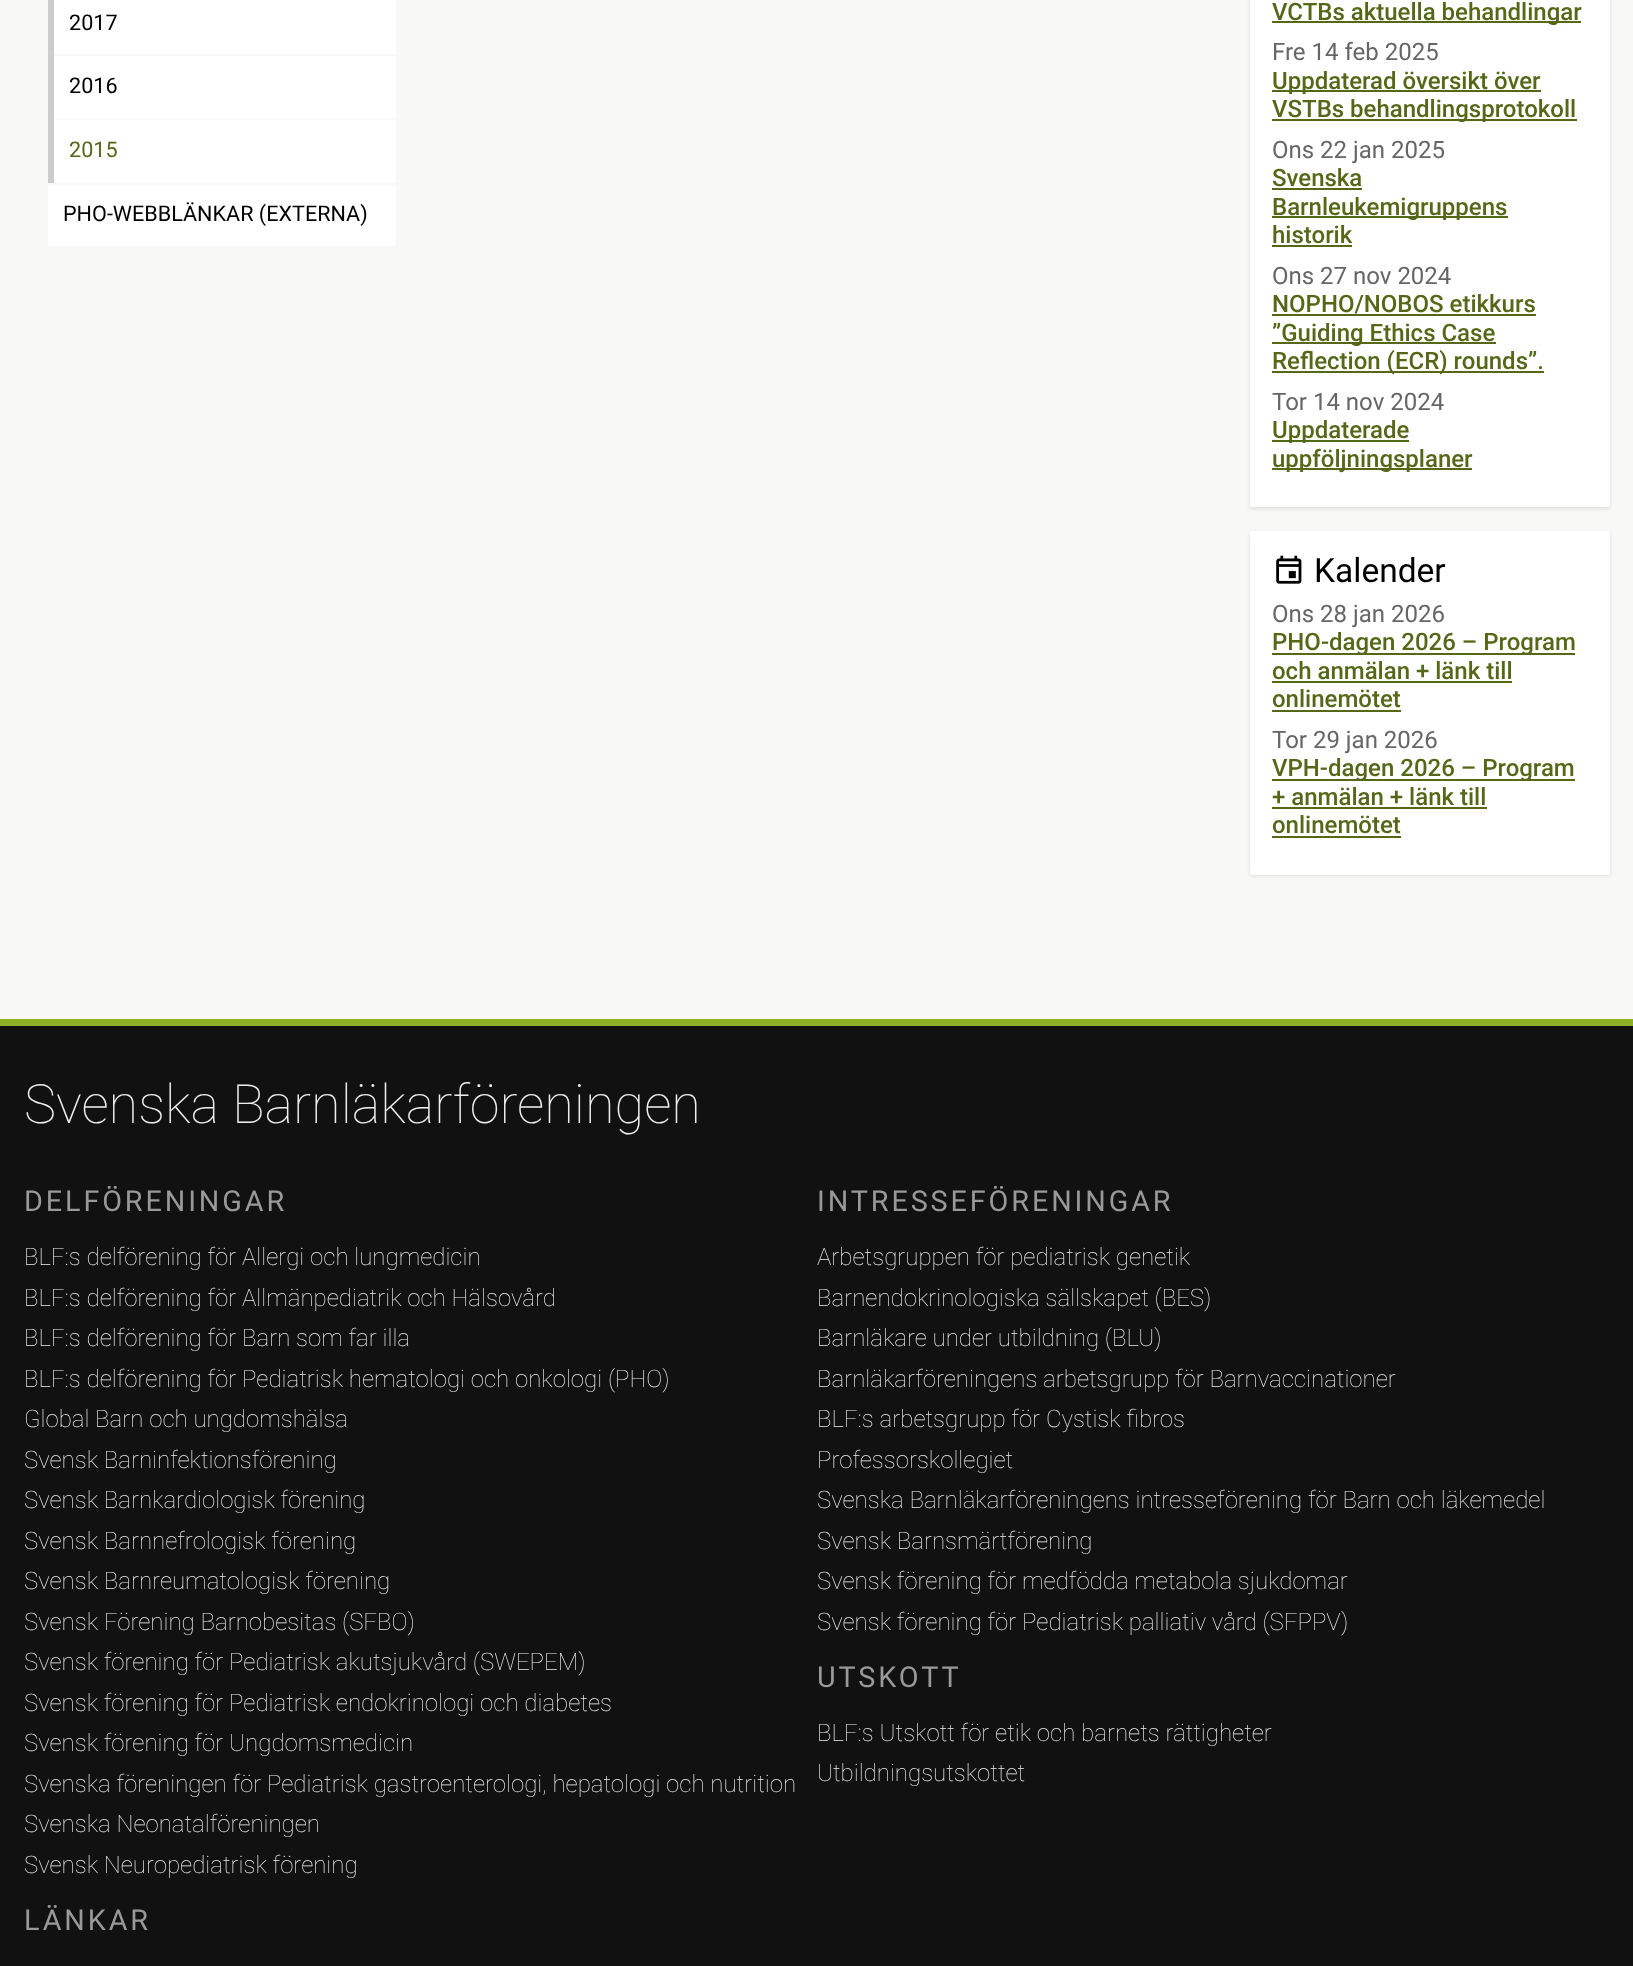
<svg xmlns="http://www.w3.org/2000/svg" xmlns:xlink="http://www.w3.org/1999/xlink" width="1633" height="1966" viewBox="0 0 1633 1966">
<style>
.cls-1{font:21.6px Roboto;fill:#000000}
.cls-2{font:21.6px Roboto;fill:#546818}
.cls-3{font:500 24px Roboto;fill:#546818}
.cls-4{font:24px Roboto;fill:#666666}
.cls-5{font:33.5px Roboto;fill:#000000}
.cls-6{font:100 54px Roboto;fill:#eeeeee}
.cls-7{font:28.75px Roboto;letter-spacing:2.9px;fill:#999999}
.cls-8{font:100 24px Roboto;fill:#eeeeee}
</style>
<rect width="100%" height="100%" fill="#f8f8f6"/>
<rect fill="#cccccc" x="48" y="0" width="6" height="183"/>
<rect fill="#ffffff" x="54" y="0" width="342" height="54"/>
<rect fill="#ffffff" x="54" y="56" width="342" height="63"/>
<path fill="#ffffff" d="M54 120H396V180C396 181.5 394.5 183 393 183H57C55.5 183 54 181.5 54 180Z"/>
<path fill="#ffffff" d="M48 185H396V243C396 244.5 394.5 246 393 246H51C49.5 246 48 244.5 48 243Z"/>
<rect fill="#000000" fill-opacity="0.1" filter="blur(2px)" x="1250" y="-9" width="360" height="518" rx="3"/>
<rect fill="#ffffff" x="1250" y="-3" width="360" height="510" rx="3"/>
<rect fill="#546818" x="1272" y="21" width="309" height="2"/>
<rect fill="#546818" x="1272" y="90" width="269" height="2"/>
<rect fill="#546818" x="1272" y="119" width="305" height="2"/>
<rect fill="#546818" x="1272" y="188" width="90" height="2"/>
<rect fill="#546818" x="1272" y="216" width="236" height="2"/>
<rect fill="#546818" x="1272" y="245" width="80" height="2"/>
<rect fill="#546818" x="1272" y="314" width="264" height="2"/>
<rect fill="#546818" x="1272" y="342" width="224" height="2"/>
<rect fill="#546818" x="1272" y="371" width="272" height="2"/>
<rect fill="#546818" x="1272" y="440" width="137" height="2"/>
<rect fill="#546818" x="1272" y="468" width="200" height="2"/>
<rect fill="#000000" fill-opacity="0.1" filter="blur(2px)" x="1250" y="533" width="360" height="343" rx="3"/>
<rect fill="#ffffff" x="1250" y="531" width="360" height="344" rx="3"/>
<image xlink:href="image0.png" x="1276" y="555" width="26" height="29"/>
<rect fill="#546818" x="1272" y="653" width="303" height="2"/>
<rect fill="#546818" x="1272" y="681" width="240" height="2"/>
<rect fill="#546818" x="1272" y="710" width="129" height="2"/>
<rect fill="#546818" x="1272" y="779" width="303" height="2"/>
<rect fill="#546818" x="1272" y="807" width="215" height="2"/>
<rect fill="#546818" x="1272" y="836" width="129" height="2"/>
<rect fill="#8daf28" x="0" y="1019" width="1633" height="7"/>
<rect fill="#111111" x="0" y="1026" width="1633" height="940"/>
<text class="cls-1" x="69" y="30">2017</text>
<text class="cls-1" x="69" y="93">2016</text>
<text class="cls-2" x="69" y="157">2015</text>
<text class="cls-1" x="63" y="221">PHO-WEBBLÄNKAR (EXTERNA)</text>
<text class="cls-3" x="1272" y="20">VCTBs aktuella behandlingar</text>
<text class="cls-4" x="1272" y="60">Fre 14 feb 2025</text>
<text class="cls-3"><tspan x="1272" y="89">Uppdaterad översikt över</tspan><tspan x="1272" y="117">VSTBs behandlingsprotokoll</tspan></text>
<text class="cls-4" x="1272" y="158">Ons 22 jan 2025</text>
<text class="cls-3"><tspan x="1272" y="186">Svenska</tspan><tspan x="1272" y="215">Barnleukemigruppens</tspan><tspan x="1272" y="243">historik</tspan></text>
<text class="cls-4" x="1272" y="284">Ons 27 nov 2024</text>
<text class="cls-3"><tspan x="1272" y="312">NOPHO/NOBOS etikkurs</tspan><tspan x="1272" y="341">”Guiding Ethics Case</tspan><tspan x="1272" y="369">Reflection (ECR) rounds”.</tspan></text>
<text class="cls-4" x="1272" y="410">Tor 14 nov 2024</text>
<text class="cls-3"><tspan x="1272" y="438">Uppdaterade</tspan><tspan x="1272" y="467">uppföljningsplaner</tspan></text>
<text class="cls-5" x="1314" y="582">Kalender</text>
<text class="cls-4" x="1272" y="622">Ons 28 jan 2026</text>
<text class="cls-3"><tspan x="1272" y="650">PHO-dagen 2026 – Program</tspan><tspan x="1272" y="679">och anmälan + länk till</tspan><tspan x="1272" y="707">onlinemötet</tspan></text>
<text class="cls-4" x="1272" y="748">Tor 29 jan 2026</text>
<text class="cls-3"><tspan x="1272" y="776">VPH-dagen 2026 – Program</tspan><tspan x="1272" y="805">+ anmälan + länk till</tspan><tspan x="1272" y="833">onlinemötet</tspan></text>
<text class="cls-6" x="24" y="1123">Svenska Barnläkarföreningen</text>
<text class="cls-7" x="24" y="1211">DELFÖRENINGAR</text>
<text class="cls-8"><tspan x="24" y="1265">BLF:s delförening för Allergi och lungmedicin</tspan><tspan x="24" y="1306">BLF:s delförening för Allmänpediatrik och Hälsovård</tspan><tspan x="24" y="1346">BLF:s delförening för Barn som far illa</tspan><tspan x="24" y="1387">BLF:s delförening för Pediatrisk hematologi och onkologi (PHO)</tspan><tspan x="24" y="1427">Global Barn och ungdomshälsa</tspan><tspan x="24" y="1468">Svensk Barninfektionsförening</tspan><tspan x="24" y="1508">Svensk Barnkardiologisk förening</tspan><tspan x="24" y="1549">Svensk Barnnefrologisk förening</tspan><tspan x="24" y="1589">Svensk Barnreumatologisk förening</tspan><tspan x="24" y="1630">Svensk Förening Barnobesitas (SFBO)</tspan><tspan x="24" y="1670">Svensk förening för Pediatrisk akutsjukvård (SWEPEM)</tspan><tspan x="24" y="1711">Svensk förening för Pediatrisk endokrinologi och diabetes</tspan><tspan x="24" y="1751">Svensk förening för Ungdomsmedicin</tspan><tspan x="24" y="1792">Svenska föreningen för Pediatrisk gastroenterologi, hepatologi och nutrition</tspan><tspan x="24" y="1832">Svenska Neonatalföreningen</tspan><tspan x="24" y="1873">Svensk Neuropediatrisk förening</tspan></text>
<text class="cls-7" x="24" y="1930">LÄNKAR</text>
<text class="cls-7" x="817" y="1211">INTRESSEFÖRENINGAR</text>
<text class="cls-8"><tspan x="817" y="1265">Arbetsgruppen för pediatrisk genetik</tspan><tspan x="817" y="1306">Barnendokrinologiska sällskapet (BES)</tspan><tspan x="817" y="1346">Barnläkare under utbildning (BLU)</tspan><tspan x="817" y="1387">Barnläkarföreningens arbetsgrupp för Barnvaccinationer</tspan><tspan x="817" y="1427">BLF:s arbetsgrupp för Cystisk fibros</tspan><tspan x="817" y="1468">Professorskollegiet</tspan><tspan x="817" y="1508">Svenska Barnläkarföreningens intresseförening för Barn och läkemedel</tspan><tspan x="817" y="1549">Svensk Barnsmärtförening</tspan><tspan x="817" y="1589">Svensk förening för medfödda metabola sjukdomar</tspan><tspan x="817" y="1630">Svensk förening för Pediatrisk palliativ vård (SFPPV)</tspan></text>
<text class="cls-7" x="817" y="1687">UTSKOTT</text>
<text class="cls-8"><tspan x="817" y="1741">BLF:s Utskott för etik och barnets rättigheter</tspan><tspan x="817" y="1781">Utbildningsutskottet</tspan></text>
</svg>
